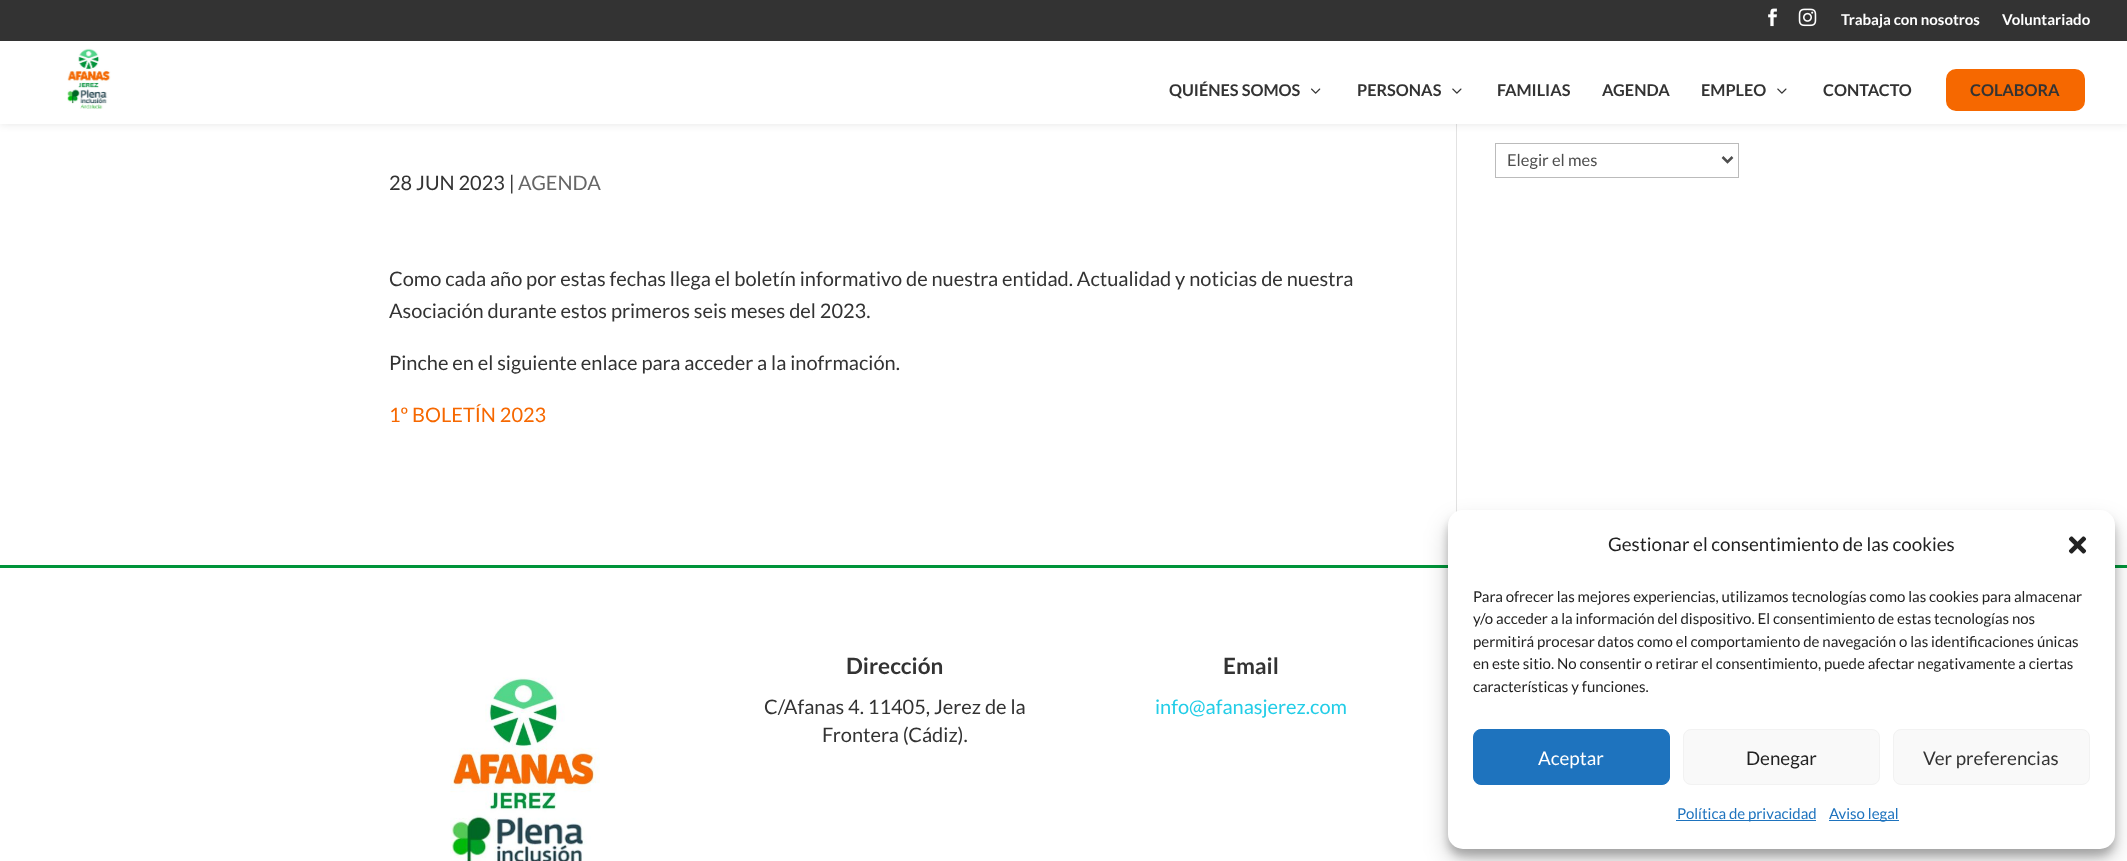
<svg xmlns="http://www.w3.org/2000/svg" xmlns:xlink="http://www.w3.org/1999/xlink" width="2127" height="861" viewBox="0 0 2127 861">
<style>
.cls-1{font:bold 15px Lato;fill:#ffffff}
.cls-2{font:bold 16.25px Lato;fill:#333333}
.cls-3{font:16.5px Lato;fill:#4e4e4e}
.cls-4{font:20px Lato;fill:#333333}
.cls-5{font:20px Lato;fill:#666666}
.cls-6{font:20px Lato;fill:#f66800}
.cls-7{font:bold 22.5px Lato;fill:#333333}
.cls-8{font:20px Lato;fill:#23cde7}
.cls-9{font:18.75px Lato;fill:#222222}
.cls-10{font:15px Lato;fill:#222222}
.cls-11{font:18.75px Lato;fill:#ffffff}
.cls-12{font:18.75px Lato;fill:#333333}
.cls-13{font:15px Lato;fill:#1e73be}
</style>
<rect width="100%" height="100%" fill="#ffffff"/>
<rect fill="#e2e2e2" x="1456" y="124" width="1" height="388"/>
<rect fill="#000000" fill-opacity="0.1" filter="blur(4.5px)" x="0" y="41" width="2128" height="83"/>
<rect fill="#333333" x="0" y="0" width="2127" height="41"/>
<image xlink:href="image0.png" x="1768" y="8" width="9" height="19"/>
<image xlink:href="image1.png" x="1798" y="8" width="19" height="19"/>
<rect fill="#ffffff" x="0" y="41" width="2127" height="83"/>
<image xlink:href="image2.png" x="67" y="48" width="44" height="61"/>
<image xlink:href="image3.png" x="1311" y="88" width="10" height="6"/>
<image xlink:href="image4.png" x="1452" y="88" width="10" height="6"/>
<image xlink:href="image4.png" x="1777" y="88" width="10" height="6"/>
<rect fill="#f66800" stroke="#ffffff" stroke-width="3" x="1944.5" y="67.5" width="142" height="45" rx="11.5"/>
<rect fill="none" stroke="#bbbbbb" x="1495.5" y="143.5" width="243" height="34"/>
<path fill="none" stroke="#4e4e4e" stroke-width="2.5" d="M1722.5 157L1727.5 162L1732.5 157"/>
<rect fill="#00943a" x="0" y="565" width="2127" height="3"/>
<image xlink:href="image5.png" x="450" y="677" width="150" height="184"/>
<rect fill="#000000" fill-opacity="0.23" filter="blur(4px)" x="1448" y="518" width="667" height="338" rx="15"/>
<rect fill="#000000" fill-opacity="0.19" filter="blur(12.5px)" x="1448" y="523" width="667" height="338" rx="15"/>
<rect fill="#ffffff" x="1448" y="510" width="667" height="339" rx="15"/>
<image xlink:href="image6.png" x="2068" y="536" width="19" height="18"/>
<rect fill="#1e73be" stroke="#1e73be" x="1473.5" y="729.5" width="196" height="55" rx="7.5"/>
<rect fill="#f9f9f9" stroke="#f2f2f2" x="1683.5" y="729.5" width="196" height="55" rx="7.5"/>
<rect fill="#f9f9f9" stroke="#f2f2f2" x="1893.5" y="729.5" width="196" height="55" rx="7.5"/>
<rect fill="#1e73be" x="1676" y="820" width="140" height="1"/>
<rect fill="#1e73be" x="1829" y="820" width="70" height="1"/>
<text class="cls-1" x="1841" y="25">Trabaja con nosotros</text>
<text class="cls-1" x="2002" y="25">Voluntariado</text>
<text class="cls-2" x="1169" y="96">QUIÉNES SOMOS</text>
<text class="cls-2" x="1357" y="96">PERSONAS</text>
<text class="cls-2" x="1497" y="96">FAMILIAS</text>
<text class="cls-2" x="1602" y="96">AGENDA</text>
<text class="cls-2" x="1701" y="96">EMPLEO</text>
<text class="cls-2" x="1823" y="96">CONTACTO</text>
<text class="cls-2" x="1970" y="96">COLABORA</text>
<text class="cls-3" x="1507" y="166">Elegir el mes</text>
<text class="cls-4" x="389" y="190">28 JUN 2023 |</text>
<text class="cls-5" x="518" y="190">AGENDA</text>
<text class="cls-4"><tspan x="389" y="286">Como cada año por estas fechas llega el boletín informativo de nuestra entidad. Actualidad y noticias de nuestra</tspan><tspan x="389" y="318">Asociación durante estos primeros seis meses del 2023.</tspan></text>
<text class="cls-4" x="389" y="370">Pinche en el siguiente enlace para acceder a la inofrmación.</text>
<text class="cls-6" x="389" y="422">1º BOLETÍN 2023</text>
<text class="cls-7" x="846" y="674">Dirección</text>
<text class="cls-4" x="764" y="714">C/Afanas 4. 11405, Jerez de la</text>
<text class="cls-4" x="822" y="742">Frontera (Cádiz).</text>
<text class="cls-7" x="1223" y="674">Email</text>
<text class="cls-8" x="1155" y="714">info@afanasjerez.com</text>
<text class="cls-9" x="1608" y="551">Gestionar el consentimiento de las cookies</text>
<text class="cls-10"><tspan x="1473" y="602">Para ofrecer las mejores experiencias, utilizamos tecnologías como las cookies para almacenar</tspan><tspan x="1473" y="624">y/o acceder a la información del dispositivo. El consentimiento de estas tecnologías nos</tspan><tspan x="1473" y="647">permitirá procesar datos como el comportamiento de navegación o las identificaciones únicas</tspan><tspan x="1473" y="669">en este sitio. No consentir o retirar el consentimiento, puede afectar negativamente a ciertas</tspan><tspan x="1473" y="692">características y funciones.</tspan></text>
<text class="cls-11" x="1538" y="765">Aceptar</text>
<text class="cls-9" x="1746" y="765">Denegar</text>
<text class="cls-12" x="1923" y="765">Ver preferencias</text>
<text class="cls-13" x="1677" y="819">Política de privacidad</text>
<text class="cls-13" x="1829" y="819">Aviso legal</text>
</svg>
